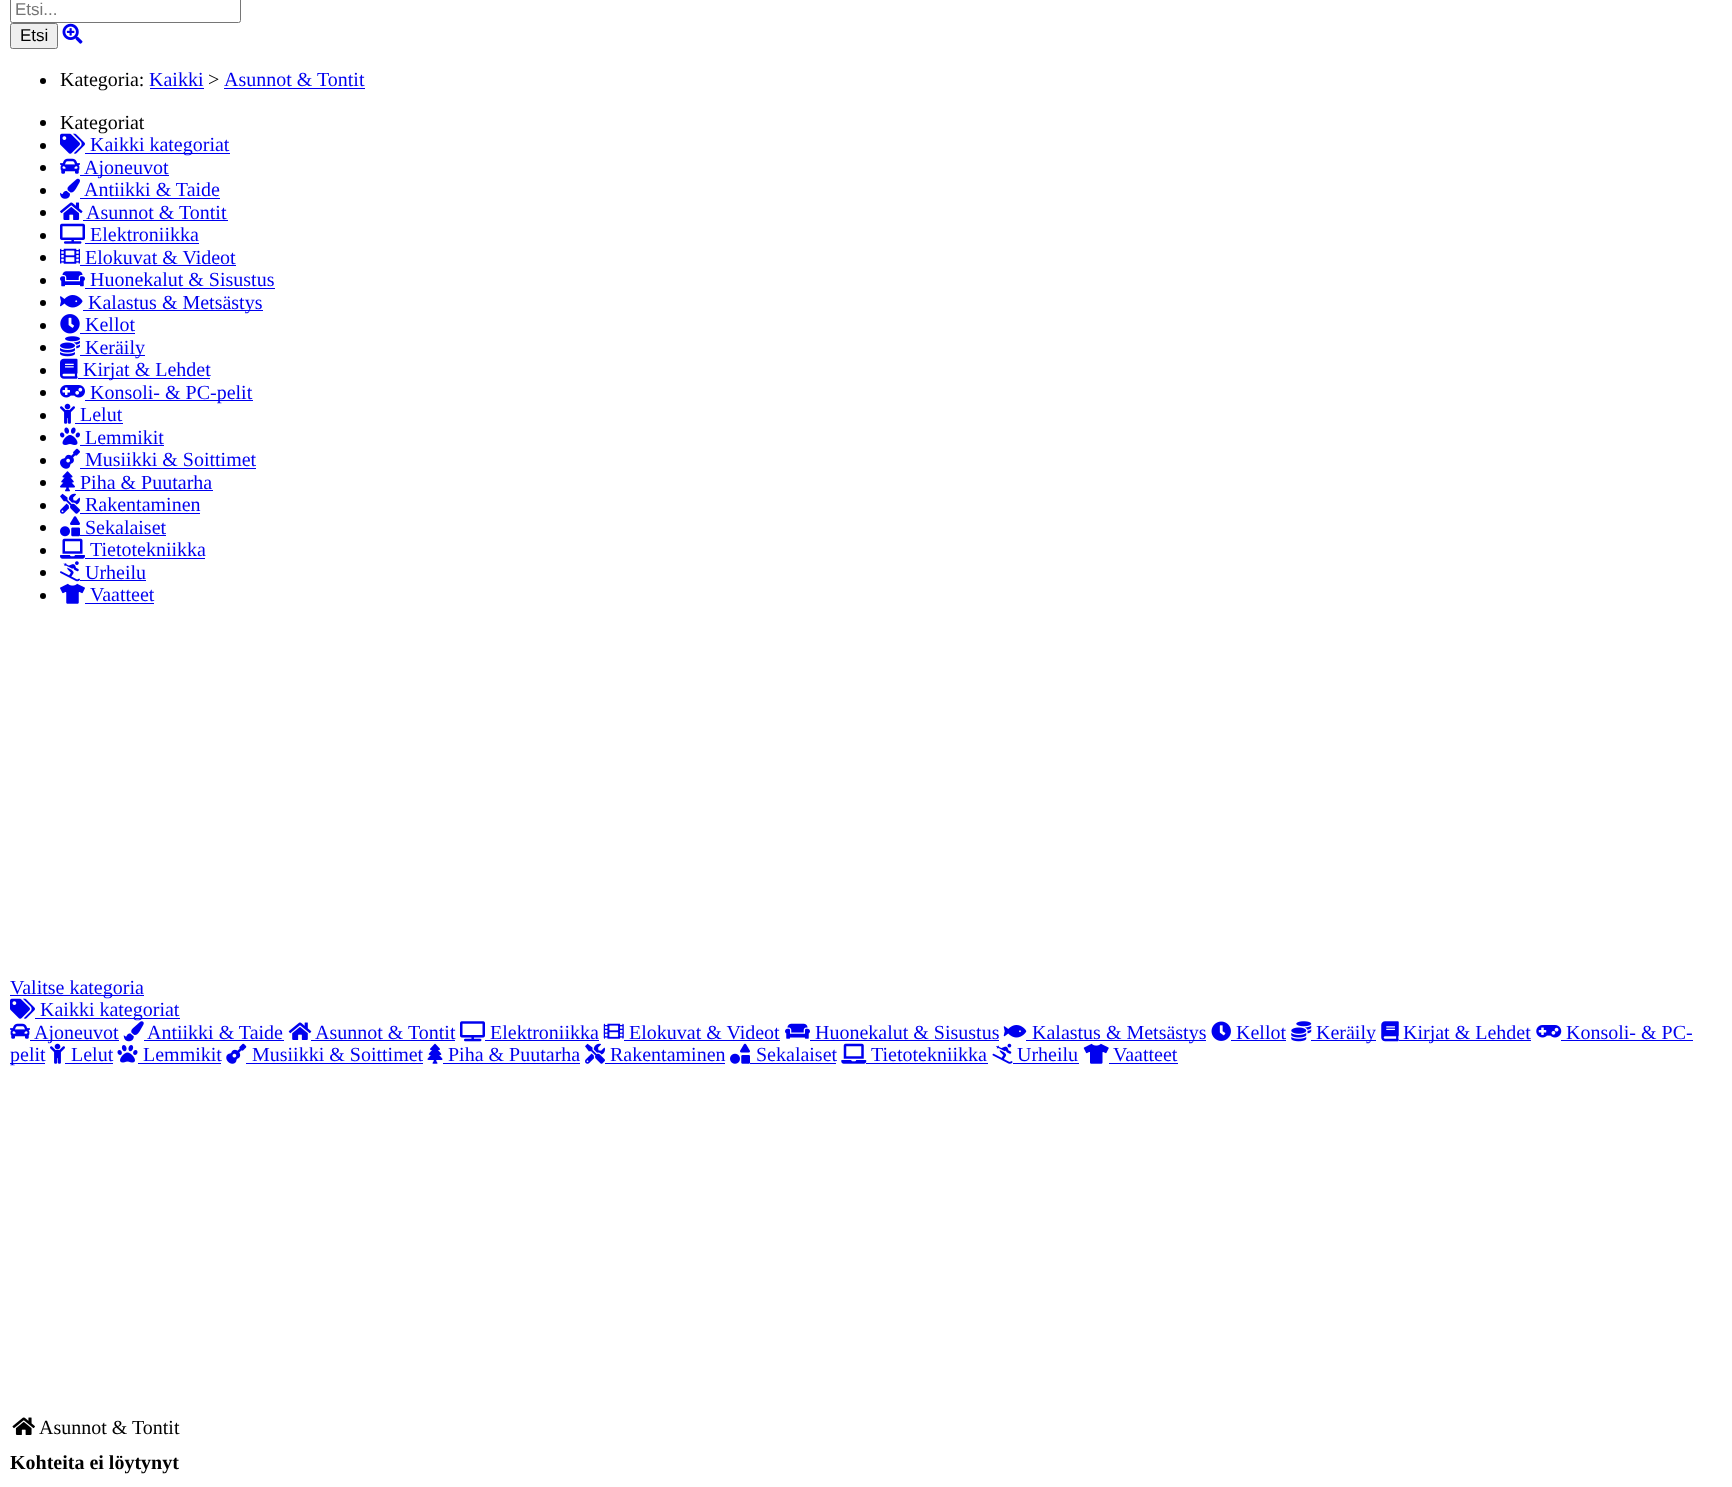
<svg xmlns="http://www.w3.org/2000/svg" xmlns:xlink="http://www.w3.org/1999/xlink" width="1732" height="1487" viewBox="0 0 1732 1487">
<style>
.cls-1{font:17px Liberation Sans;fill:#757575}
.cls-2{font:17px Liberation Sans;fill:#000000}
.cls-3{font:20px Liberation Serif;fill:#000000}
.cls-4{font:20px Liberation Serif;fill:#0000ee}
.cls-5{font:bold 20px Liberation Serif;fill:#000000}
</style>
<rect width="100%" height="100%" fill="#ffffff"/>
<rect fill="none" stroke="#767676" x="10.5" y="-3.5" width="230" height="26" rx="2"/>
<rect fill="#efefef" stroke="#767676" x="10.5" y="23.5" width="47" height="25" rx="2"/>
<image xlink:href="image0.png" x="62" y="23" width="21" height="21"/>
<circle fill="#000000" cx="43" cy="81" r="3"/>
<rect fill="#0000ee" x="150" y="88" width="54" height="1"/>
<rect fill="#0000ee" x="224" y="88" width="141" height="1"/>
<circle fill="#000000" cx="43" cy="123" r="3"/>
<circle fill="#000000" cx="43" cy="146" r="3"/>
<rect fill="#0000ee" x="85" y="153" width="145" height="1"/>
<circle fill="#000000" cx="43" cy="168" r="3"/>
<image xlink:href="image2.png" x="60" y="158" width="20" height="16"/>
<rect fill="#0000ee" x="80" y="175" width="89" height="1"/>
<circle fill="#000000" cx="43" cy="191" r="3"/>
<image xlink:href="image3.png" x="60" y="178" width="20" height="21"/>
<rect fill="#0000ee" x="80" y="198" width="140" height="1"/>
<circle fill="#000000" cx="43" cy="213" r="3"/>
<image xlink:href="image4.png" x="60" y="202" width="23" height="18"/>
<rect fill="#0000ee" x="83" y="220" width="145" height="1"/>
<circle fill="#000000" cx="43" cy="236" r="3"/>
<image xlink:href="image5.png" x="60" y="223" width="25" height="21"/>
<rect fill="#0000ee" x="85" y="243" width="114" height="1"/>
<circle fill="#000000" cx="43" cy="258" r="3"/>
<image xlink:href="image6.png" x="60" y="248" width="20" height="16"/>
<rect fill="#0000ee" x="80" y="265" width="156" height="1"/>
<circle fill="#000000" cx="43" cy="281" r="3"/>
<image xlink:href="image7.png" x="60" y="271" width="25" height="16"/>
<rect fill="#0000ee" x="85" y="288" width="190" height="1"/>
<circle fill="#000000" cx="43" cy="303" r="3"/>
<image xlink:href="image8.png" x="60" y="295" width="23" height="13"/>
<rect fill="#0000ee" x="83" y="310" width="180" height="1"/>
<circle fill="#000000" cx="43" cy="326" r="3"/>
<image xlink:href="image9.png" x="60" y="314" width="20" height="20"/>
<rect fill="#0000ee" x="80" y="333" width="55" height="1"/>
<circle fill="#000000" cx="43" cy="348" r="3"/>
<image xlink:href="image10.png" x="60" y="336" width="20" height="21"/>
<rect fill="#0000ee" x="80" y="355" width="65" height="1"/>
<circle fill="#000000" cx="43" cy="371" r="3"/>
<image xlink:href="image11.png" x="60" y="358" width="18" height="21"/>
<rect fill="#0000ee" x="78" y="378" width="132" height="1"/>
<circle fill="#000000" cx="43" cy="393" r="3"/>
<image xlink:href="image12.png" x="60" y="385" width="25" height="13"/>
<rect fill="#0000ee" x="85" y="400" width="168" height="1"/>
<circle fill="#000000" cx="43" cy="416" r="3"/>
<image xlink:href="image13.png" x="60" y="403" width="15" height="21"/>
<rect fill="#0000ee" x="75" y="423" width="48" height="1"/>
<circle fill="#000000" cx="43" cy="438" r="3"/>
<image xlink:href="image14.png" x="60" y="427" width="20" height="18"/>
<rect fill="#0000ee" x="80" y="445" width="84" height="1"/>
<circle fill="#000000" cx="43" cy="461" r="3"/>
<image xlink:href="image15.png" x="60" y="448" width="20" height="21"/>
<rect fill="#0000ee" x="80" y="468" width="176" height="1"/>
<circle fill="#000000" cx="43" cy="483" r="3"/>
<image xlink:href="image16.png" x="60" y="471" width="15" height="21"/>
<rect fill="#0000ee" x="75" y="490" width="138" height="1"/>
<circle fill="#000000" cx="43" cy="506" r="3"/>
<image xlink:href="image17.png" x="60" y="493" width="20" height="21"/>
<rect fill="#0000ee" x="80" y="513" width="120" height="1"/>
<circle fill="#000000" cx="43" cy="528" r="3"/>
<image xlink:href="image18.png" x="60" y="516" width="20" height="21"/>
<rect fill="#0000ee" x="80" y="535" width="86" height="1"/>
<circle fill="#000000" cx="43" cy="551" r="3"/>
<image xlink:href="image19.png" x="60" y="538" width="25" height="21"/>
<rect fill="#0000ee" x="85" y="558" width="120" height="1"/>
<circle fill="#000000" cx="43" cy="573" r="3"/>
<image xlink:href="image20.png" x="60" y="561" width="20" height="21"/>
<rect fill="#0000ee" x="80" y="580" width="66" height="1"/>
<circle fill="#000000" cx="43" cy="596" r="3"/>
<image xlink:href="image21.png" x="60" y="583" width="25" height="21"/>
<rect fill="#0000ee" x="85" y="603" width="69" height="1"/>
<rect fill="#0000ee" x="10" y="995" width="134" height="1"/>
<rect fill="#0000ee" x="35" y="1018" width="145" height="1"/>
<image xlink:href="image22.png" x="1536" y="1025" width="26" height="13"/>
<rect fill="#0000ee" x="1561" y="1040" width="132" height="1"/>
<rect fill="#0000ee" x="10" y="1063" width="35" height="1"/>
<image xlink:href="image2.png" x="10" y="1023" width="20" height="16"/>
<rect fill="#0000ee" x="30" y="1040" width="89" height="1"/>
<image xlink:href="image23.png" x="123" y="1021" width="21" height="21"/>
<rect fill="#0000ee" x="144" y="1040" width="140" height="1"/>
<image xlink:href="image24.png" x="288" y="1022" width="24" height="18"/>
<rect fill="#0000ee" x="311" y="1040" width="144" height="1"/>
<image xlink:href="image25.png" x="460" y="1021" width="25" height="21"/>
<rect fill="#0000ee" x="485" y="1040" width="114" height="1"/>
<image xlink:href="image26.png" x="603" y="1023" width="21" height="16"/>
<rect fill="#0000ee" x="624" y="1040" width="156" height="1"/>
<image xlink:href="image27.png" x="785" y="1023" width="25" height="16"/>
<rect fill="#0000ee" x="810" y="1040" width="189" height="1"/>
<image xlink:href="image28.png" x="1003" y="1025" width="24" height="13"/>
<rect fill="#0000ee" x="1026" y="1040" width="180" height="1"/>
<image xlink:href="image29.png" x="1211" y="1021" width="20" height="20"/>
<rect fill="#0000ee" x="1231" y="1040" width="55" height="1"/>
<image xlink:href="image30.png" x="1291" y="1021" width="21" height="21"/>
<rect fill="#0000ee" x="1311" y="1040" width="65" height="1"/>
<image xlink:href="image31.png" x="1381" y="1021" width="18" height="21"/>
<rect fill="#0000ee" x="1399" y="1040" width="132" height="1"/>
<rect fill="#0000ee" x="65" y="1063" width="48" height="1"/>
<image xlink:href="image33.png" x="117" y="1045" width="21" height="18"/>
<rect fill="#0000ee" x="138" y="1063" width="83" height="1"/>
<image xlink:href="image34.png" x="226" y="1043" width="21" height="21"/>
<rect fill="#0000ee" x="246" y="1063" width="177" height="1"/>
<image xlink:href="image35.png" x="427" y="1043" width="16" height="21"/>
<rect fill="#0000ee" x="443" y="1063" width="137" height="1"/>
<image xlink:href="image17.png" x="585" y="1043" width="20" height="21"/>
<rect fill="#0000ee" x="605" y="1063" width="120" height="1"/>
<image xlink:href="image36.png" x="730" y="1043" width="20" height="21"/>
<rect fill="#0000ee" x="750" y="1063" width="86" height="1"/>
<image xlink:href="image37.png" x="841" y="1043" width="26" height="21"/>
<rect fill="#0000ee" x="866" y="1063" width="122" height="1"/>
<image xlink:href="image38.png" x="992" y="1043" width="21" height="21"/>
<rect fill="#0000ee" x="1013" y="1063" width="66" height="1"/>
<rect fill="#0000ee" x="1109" y="1063" width="69" height="1"/>
<image xlink:href="image40.png" x="12" y="1417" width="23" height="18"/>
<text class="cls-1" x="15" y="15">Etsi...</text>
<text class="cls-2" x="20" y="41">Etsi</text>
<text class="cls-3" x="60" y="86">Kategoria:</text>
<text class="cls-4" x="149" y="86">Kaikki</text>
<text class="cls-3" x="208" y="86">&gt;</text>
<text class="cls-4" x="224" y="86">Asunnot &amp; Tontit</text>
<text class="cls-3" x="60" y="129">Kategoriat</text>
<image xlink:href="image1.png" x="60" y="133" width="25" height="21"/>
<text class="cls-4" x="90" y="151">Kaikki kategoriat</text>
<text class="cls-4"><tspan x="84" y="174">Ajoneuvot</tspan><tspan x="84" y="196">Antiikki &amp; Taide</tspan></text>
<text class="cls-4" x="86" y="219">Asunnot &amp; Tontit</text>
<text class="cls-4" x="90" y="241">Elektroniikka</text>
<text class="cls-4" x="85" y="264">Elokuvat &amp; Videot</text>
<text class="cls-4" x="90" y="286">Huonekalut &amp; Sisustus</text>
<text class="cls-4" x="88" y="309">Kalastus &amp; Metsästys</text>
<text class="cls-4"><tspan x="85" y="331">Kellot</tspan><tspan x="85" y="354">Keräily</tspan></text>
<text class="cls-4" x="83" y="376">Kirjat &amp; Lehdet</text>
<text class="cls-4" x="90" y="399">Konsoli- &amp; PC-pelit</text>
<text class="cls-4" x="80" y="421">Lelut</text>
<text class="cls-4"><tspan x="85" y="444">Lemmikit</tspan><tspan x="85" y="466">Musiikki &amp; Soittimet</tspan></text>
<text class="cls-4" x="80" y="489">Piha &amp; Puutarha</text>
<text class="cls-4"><tspan x="85" y="511">Rakentaminen</tspan><tspan x="85" y="534">Sekalaiset</tspan></text>
<text class="cls-4" x="90" y="556">Tietotekniikka</text>
<text class="cls-4" x="85" y="579">Urheilu</text>
<text class="cls-4" x="90" y="601">Vaatteet</text>
<text class="cls-4" x="10" y="994">Valitse kategoria</text>
<image xlink:href="image1.png" x="10" y="998" width="25" height="21"/>
<text class="cls-4" x="40" y="1016">Kaikki kategoriat</text>
<text class="cls-4" x="1566" y="1039">Konsoli- &amp; PC-</text>
<text class="cls-4" x="10" y="1061">pelit</text>
<text class="cls-4" x="34" y="1039">Ajoneuvot</text>
<text class="cls-4" x="147" y="1039">Antiikki &amp; Taide</text>
<text class="cls-4" x="315" y="1039">Asunnot &amp; Tontit</text>
<text class="cls-4" x="490" y="1039">Elektroniikka</text>
<text class="cls-4" x="629" y="1039">Elokuvat &amp; Videot</text>
<text class="cls-4" x="815" y="1039">Huonekalut &amp; Sisustus</text>
<text class="cls-4" x="1032" y="1039">Kalastus &amp; Metsästys</text>
<text class="cls-4" x="1236" y="1039">Kellot</text>
<text class="cls-4" x="1316" y="1039">Keräily</text>
<text class="cls-4" x="1403" y="1039">Kirjat &amp; Lehdet</text>
<image xlink:href="image32.png" x="50" y="1043" width="15" height="21"/>
<text class="cls-4" x="71" y="1061">Lelut</text>
<text class="cls-4" x="143" y="1061">Lemmikit</text>
<text class="cls-4" x="252" y="1061">Musiikki &amp; Soittimet</text>
<text class="cls-4" x="448" y="1061">Piha &amp; Puutarha</text>
<text class="cls-4" x="610" y="1061">Rakentaminen</text>
<text class="cls-4" x="756" y="1061">Sekalaiset</text>
<text class="cls-4" x="871" y="1061">Tietotekniikka</text>
<text class="cls-4" x="1017" y="1061">Urheilu</text>
<image xlink:href="image39.png" x="1083" y="1043" width="26" height="21"/>
<text class="cls-4" x="1113" y="1061">Vaatteet</text>
<text class="cls-3" x="39" y="1434">Asunnot &amp; Tontit</text>
<text class="cls-5" x="10" y="1469">Kohteita ei löytynyt</text>
</svg>
